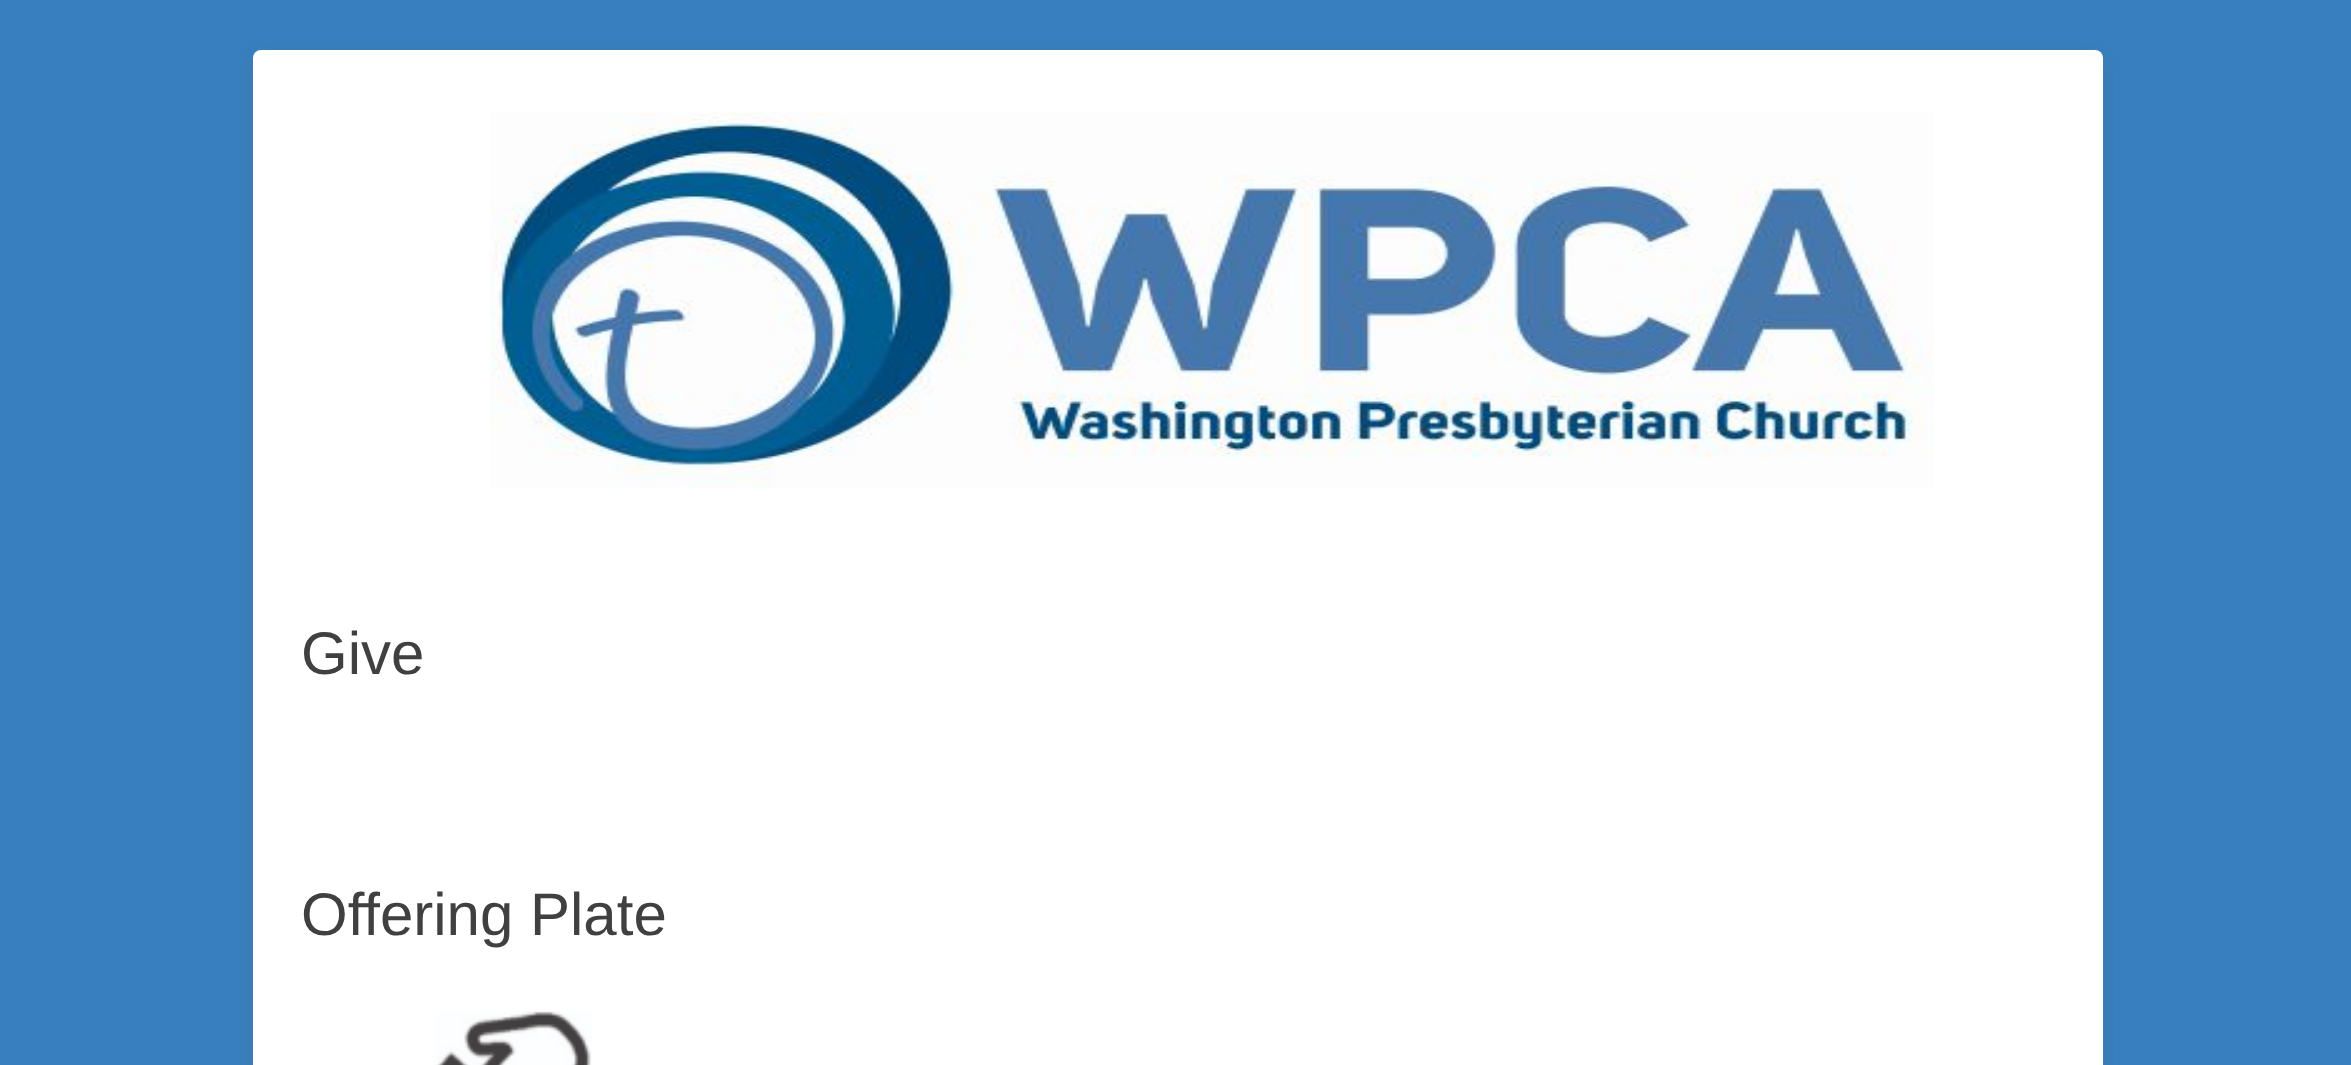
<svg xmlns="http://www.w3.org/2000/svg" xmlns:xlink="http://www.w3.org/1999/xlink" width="2351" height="1065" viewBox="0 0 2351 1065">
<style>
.cls-1{font:60px Liberation Sans;fill:#404040}
</style>
<rect width="100%" height="100%" fill="#377fbf"/>
<rect fill="#646464" fill-opacity="0.3" filter="blur(7.5px)" x="253" y="55" width="1850" height="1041" rx="8"/>
<rect fill="#ffffff" x="253" y="50" width="1850" height="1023" rx="8"/>
<image xlink:href="image0.png" x="490" y="112" width="1444" height="376"/>
<image xlink:href="image1.png" x="434" y="1011" width="158" height="54"/>
<text class="cls-1" x="301" y="674">Give</text>
<text class="cls-1" x="301" y="935">Offering Plate</text>
</svg>
